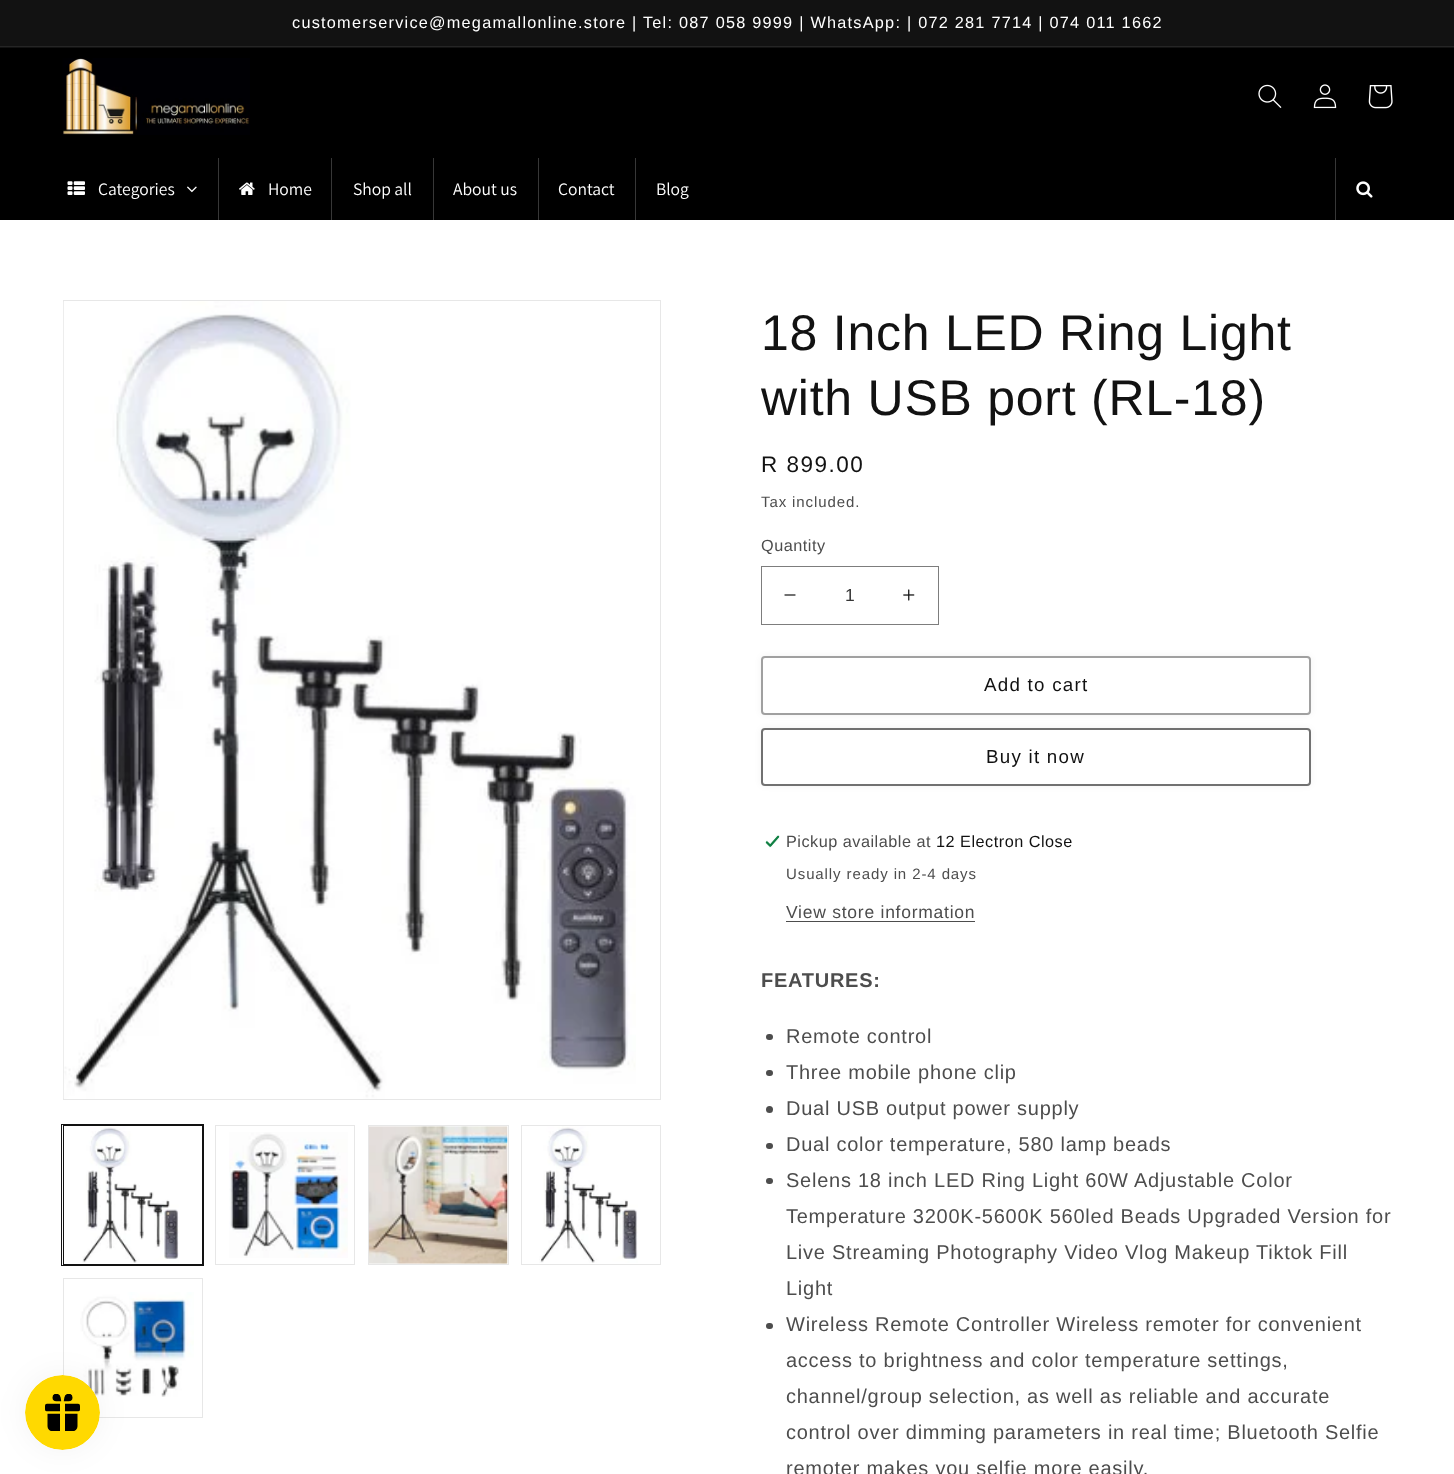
<svg xmlns="http://www.w3.org/2000/svg" xmlns:xlink="http://www.w3.org/1999/xlink" width="1454" height="1474" viewBox="0 0 1454 1474">
<style>
.cls-1{font:16.25px Liberation Sans;letter-spacing:1.25px;fill:#ffffff}
.cls-2{font:200 17.5px Assistant;fill:#ffffff}
.cls-3{font:50px Liberation Sans;letter-spacing:0.75px;fill:#121212}
.cls-4{font:22.5px Liberation Sans;letter-spacing:1.5px;fill:#121212}
.cls-5{font:15px Liberation Sans;letter-spacing:0.9px;fill:#4d4d4d}
.cls-6{font:16.25px Liberation Sans;letter-spacing:0.5px;fill:#4d4d4d}
.cls-7{font:17.5px Liberation Sans;fill:#363636}
.cls-8{font:18.75px Liberation Sans;letter-spacing:1.25px;fill:#121212}
.cls-9{font:16.25px Liberation Sans;letter-spacing:0.5px;fill:#121212}
.cls-10{font:17.5px Liberation Sans;letter-spacing:0.75px;fill:#4d4d4d}
.cls-11{font:bold 20px Liberation Sans;letter-spacing:0.75px;fill:#4d4d4d}
.cls-12{font:20px Liberation Sans;letter-spacing:0.75px;fill:#4d4d4d}
</style>
<rect width="100%" height="100%" fill="#ffffff"/>
<rect fill="#121212" x="0" y="0" width="1454" height="48"/>
<rect fill="#252525" x="0" y="46" width="1454" height="1"/>
<rect fill="#000000" x="0" y="48" width="1454" height="172"/>
<image xlink:href="image0.png" x="62" y="58" width="188" height="77"/>
<image xlink:href="image1.png" x="1258" y="84" width="24" height="24"/>
<image xlink:href="image2.png" x="1313" y="84" width="24" height="25"/>
<image xlink:href="image3.png" x="1368" y="85" width="25" height="24"/>
<image xlink:href="image4.png" x="67" y="181" width="18" height="14"/>
<image xlink:href="image5.png" x="187" y="186" width="10" height="7"/>
<rect fill="#373737" x="218" y="158" width="1" height="62"/>
<image xlink:href="image6.png" x="239" y="182" width="16" height="13"/>
<rect fill="#373737" x="331" y="158" width="1" height="62"/>
<rect fill="#373737" x="433" y="158" width="1" height="62"/>
<rect fill="#373737" x="538" y="158" width="1" height="62"/>
<rect fill="#373737" x="635" y="158" width="1" height="62"/>
<rect fill="#373737" x="1335" y="158" width="1" height="62"/>
<image xlink:href="image7.png" x="1356" y="181" width="17" height="17"/>
<rect fill="none" stroke="#e7e7e7" x="63.5" y="1278.5" width="139" height="139"/>
<image xlink:href="image14.png" x="80" y="1292" width="114" height="105"/>
<rect fill="#000000" fill-opacity="0.05" filter="blur(15.5px)" x="25" y="1375" width="75" height="75" rx="37.5"/>
<image xlink:href="image8.png" x="25" y="1375" width="75" height="75"/>
<rect fill="none" stroke="#e7e7e7" x="63.5" y="300.5" width="597" height="799"/>
<image xlink:href="image9.png" x="63" y="301" width="573" height="798"/>
<rect fill="none" stroke="#121212" x="61.5" y="1124.5" width="142" height="141"/>
<rect fill="none" stroke="#121212" x="63.5" y="1125.5" width="139" height="139"/>
<image xlink:href="image10.png" x="82" y="1126" width="97" height="137"/>
<rect fill="none" stroke="#e7e7e7" x="215.5" y="1125.5" width="139" height="139"/>
<image xlink:href="image11.png" x="229" y="1132" width="119" height="126"/>
<rect fill="none" stroke="#e7e7e7" x="368.5" y="1125.5" width="140" height="139"/>
<image xlink:href="image12.png" x="368" y="1126" width="140" height="138"/>
<rect fill="none" stroke="#e7e7e7" x="521.5" y="1125.5" width="139" height="139"/>
<image xlink:href="image13.png" x="539" y="1126" width="99" height="137"/>
<image xlink:href="image15.png" x="784" y="594" width="12" height="2"/>
<image xlink:href="image16.png" x="903" y="589" width="12" height="12"/>
<rect fill="none" stroke="#7d7d7d" x="761.5" y="566.5" width="177" height="58"/>
<rect fill="#121212" fill-opacity="0.05" filter="blur(3px)" x="761" y="656" width="550" height="59" rx="4"/>
<rect fill="#ffffff" x="761" y="656" width="550" height="59" rx="4"/>
<rect fill="none" stroke="#a0a0a0" stroke-width="2" x="762" y="657" width="548" height="57" rx="3"/>
<rect fill="#121212" fill-opacity="0.05" filter="blur(3px)" x="761" y="728" width="550" height="58" rx="4"/>
<rect fill="#ffffff" x="761" y="728" width="550" height="58" rx="4"/>
<rect fill="none" stroke="#717171" stroke-width="2" x="762" y="729" width="548" height="56" rx="3"/>
<image xlink:href="image17.png" x="765" y="835" width="15" height="13"/>
<rect fill="#4d4d4d" x="786" y="921" width="189" height="1"/>
<rect fill="#4d4d4d" x="766" y="1034" width="7" height="6" rx="3"/>
<rect fill="#4d4d4d" x="766" y="1070" width="7" height="6" rx="3"/>
<circle fill="#4d4d4d" cx="769.5" cy="1109.5" r="3.5"/>
<rect fill="#4d4d4d" x="766" y="1143" width="7" height="6" rx="3"/>
<rect fill="#4d4d4d" x="766" y="1178" width="7" height="6" rx="3"/>
<rect fill="#4d4d4d" x="766" y="1323" width="7" height="6" rx="3"/>
<text class="cls-1" x="292" y="28">customerservice@megamallonline.store | Tel: 087 058 9999 | WhatsApp: | 072 281 7714 | 074 011 1662</text>
<text class="cls-2" x="98" y="195">Categories</text>
<text class="cls-2" x="268" y="195">Home</text>
<text class="cls-2" x="353" y="195">Shop all</text>
<text class="cls-2" x="453" y="195">About us</text>
<text class="cls-2" x="558" y="195">Contact</text>
<text class="cls-2" x="656" y="195">Blog</text>
<text class="cls-3"><tspan x="761" y="350">18 Inch LED Ring Light</tspan><tspan x="761" y="415">with USB port (RL-18)</tspan></text>
<text class="cls-4" x="761" y="472">R 899.00</text>
<text class="cls-5" x="761" y="507">Tax included.</text>
<text class="cls-6" x="761" y="551">Quantity</text>
<text class="cls-7" x="845" y="601">1</text>
<text class="cls-8" x="984" y="691">Add to cart</text>
<text class="cls-8" x="986" y="763">Buy it now</text>
<text class="cls-6" x="786" y="847">Pickup available at</text>
<text class="cls-9" x="936" y="847">12 Electron Close</text>
<text class="cls-5" x="786" y="879">Usually ready in 2-4 days</text>
<text class="cls-10" x="786" y="918">View store information</text>
<text class="cls-11" x="761" y="987">FEATURES:</text>
<text class="cls-12"><tspan x="786" y="1043">Remote control</tspan><tspan x="786" y="1079">Three mobile phone clip</tspan><tspan x="786" y="1115">Dual USB output power supply</tspan><tspan x="786" y="1151">Dual color temperature, 580 lamp beads</tspan><tspan x="786" y="1187">Selens 18 inch LED Ring Light 60W Adjustable Color</tspan><tspan x="786" y="1223">Temperature 3200K-5600K 560led Beads Upgraded Version for</tspan><tspan x="786" y="1259">Live Streaming Photography Video Vlog Makeup Tiktok Fill</tspan><tspan x="786" y="1295">Light</tspan><tspan x="786" y="1331">Wireless Remote Controller Wireless remoter for convenient</tspan><tspan x="786" y="1367">access to brightness and color temperature settings,</tspan><tspan x="786" y="1403">channel/group selection, as well as reliable and accurate</tspan><tspan x="786" y="1439">control over dimming parameters in real time; Bluetooth Selfie</tspan><tspan x="786" y="1475">remoter makes you selfie more easily.</tspan></text>
</svg>
